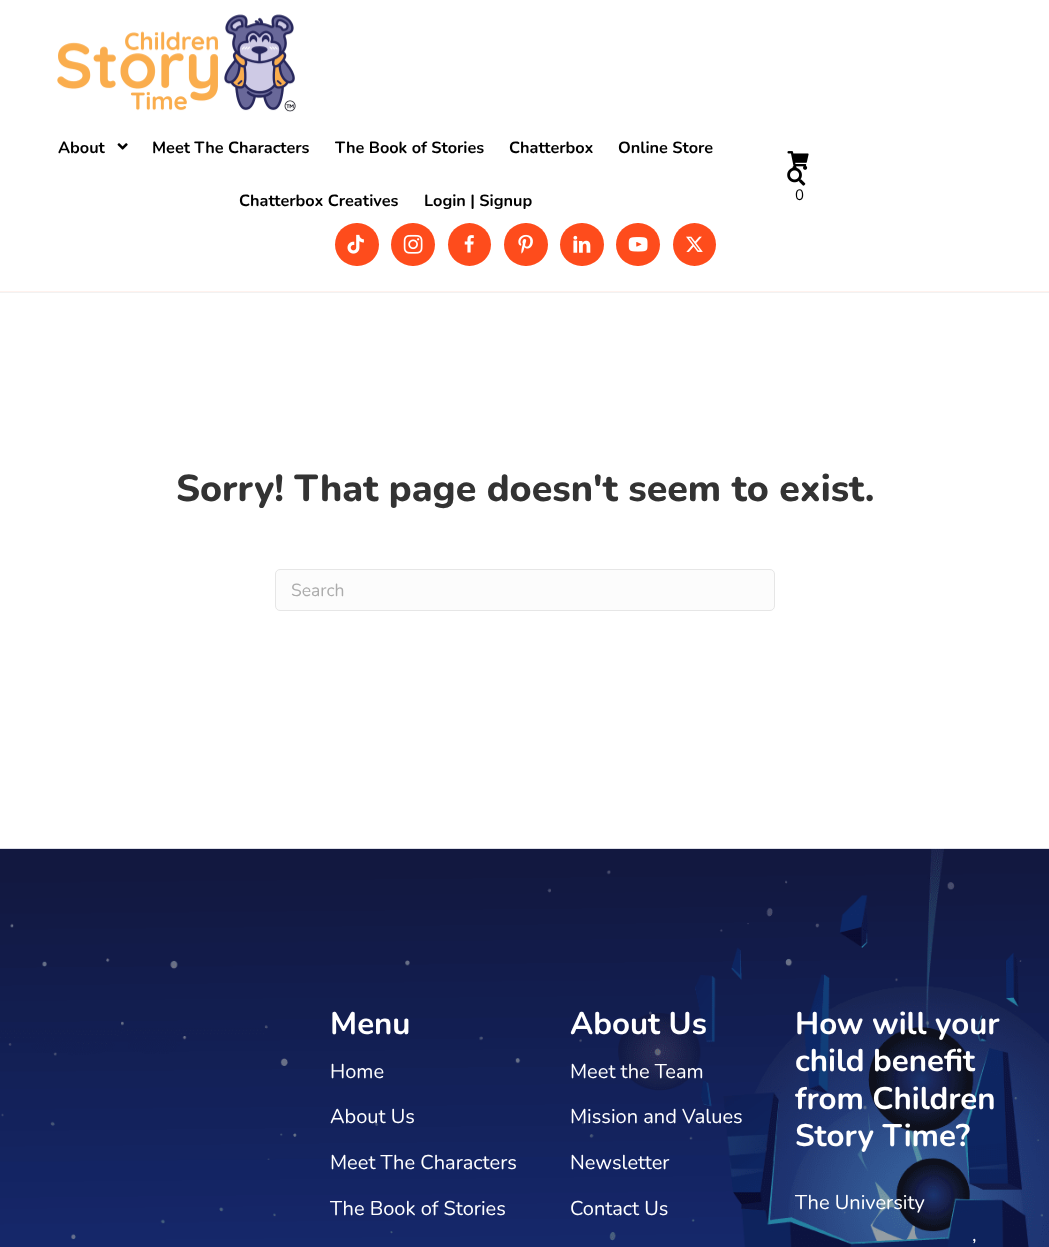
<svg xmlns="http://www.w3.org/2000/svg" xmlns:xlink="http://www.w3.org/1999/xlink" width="1049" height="1247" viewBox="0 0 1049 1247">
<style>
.cls-1{font:bold 16.25px Nunito;fill:#000000}
.cls-2{font:15px Nunito;fill:#000000}
.cls-3{font:800 37.5px Nunito;fill:#333333}
.cls-4{font:17.5px Nunito;fill:#acacac}
.cls-5{font:bold 31.25px Nunito;fill:#ffffff}
.cls-6{font:20px Nunito;fill:#ffffff}
</style>
<rect width="100%" height="100%" fill="#f2f2f2"/>
<rect fill="#ffffff" x="0" y="0" width="1049" height="291"/>
<rect fill="#fff2ee" x="0" y="291" width="1049" height="1"/>
<image xlink:href="image0.png" x="57" y="14" width="239" height="98"/>
<image xlink:href="image1.png" x="117" y="143" width="11" height="7"/>
<image xlink:href="image3.png" x="787" y="151" width="22" height="19"/>
<image xlink:href="image2.png" x="787" y="167" width="19" height="19"/>
<rect fill="#fe4c1c" x="335" y="223" width="44" height="43" rx="21.5"/>
<image xlink:href="image4.png" x="347" y="234" width="17" height="20"/>
<rect fill="#fe4c1c" x="391" y="223" width="44" height="43" rx="21.5"/>
<image xlink:href="image5.png" x="403" y="234" width="20" height="20"/>
<circle fill="#fe4c1c" cx="469.5" cy="244.5" r="21.5"/>
<image xlink:href="image6.png" x="464" y="235" width="10" height="18"/>
<rect fill="#fe4c1c" x="504" y="223" width="44" height="43" rx="21.5"/>
<image xlink:href="image7.png" x="518" y="234" width="15" height="20"/>
<rect fill="#fe4c1c" x="560" y="223" width="44" height="43" rx="21.5"/>
<image xlink:href="image8.png" x="573" y="235" width="18" height="18"/>
<rect fill="#fe4c1c" x="616" y="223" width="44" height="43" rx="21.5"/>
<image xlink:href="image9.png" x="628" y="237" width="20" height="15"/>
<circle fill="#fe4c1c" cx="694.5" cy="244.5" r="21.5"/>
<image xlink:href="image10.png" x="686" y="236" width="17" height="16"/>
<rect fill="#ffffff" x="0" y="293" width="1049" height="556"/>
<rect fill="#fcfcfc" stroke="#e6e6e6" x="275.5" y="569.5" width="499" height="41" rx="4.5"/>
<rect fill="#100f1f" x="0" y="849" width="1049" height="398"/>
<image xlink:href="image11.png" x="0" y="848" width="1049" height="399"/>
<text class="cls-1" x="58" y="153">About</text>
<text class="cls-1" x="152" y="153">Meet The Characters</text>
<text class="cls-1" x="335" y="153">The Book of Stories</text>
<text class="cls-1" x="509" y="153">Chatterbox</text>
<text class="cls-1" x="618" y="153">Online Store</text>
<text class="cls-1" x="239" y="206">Chatterbox Creatives</text>
<text class="cls-1" x="424" y="206">Login | Signup</text>
<text class="cls-2" x="795" y="200">0</text>
<text class="cls-3" x="176" y="501">Sorry! That page doesn't seem to exist.</text>
<text class="cls-4" x="291" y="596">Search</text>
<text class="cls-5" x="330" y="1034">Menu</text>
<text class="cls-6" x="330" y="1078">Home</text>
<text class="cls-6" x="330" y="1123">About Us</text>
<text class="cls-6" x="330" y="1169">Meet The Characters</text>
<text class="cls-6" x="330" y="1215">The Book of Stories</text>
<text class="cls-5" x="570" y="1034">About Us</text>
<text class="cls-6" x="570" y="1078">Meet the Team</text>
<text class="cls-6" x="570" y="1123">Mission and Values</text>
<text class="cls-6" x="570" y="1169">Newsletter</text>
<text class="cls-6" x="570" y="1215">Contact Us</text>
<text class="cls-5"><tspan x="795" y="1034">How will your</tspan><tspan x="795" y="1071">child benefit</tspan><tspan x="795" y="1109">from Children</tspan><tspan x="795" y="1146">Story Time?</tspan></text>
<text class="cls-6" x="795" y="1209">The University</text>
<text class="cls-6" x="972" y="1253">’</text>
</svg>
